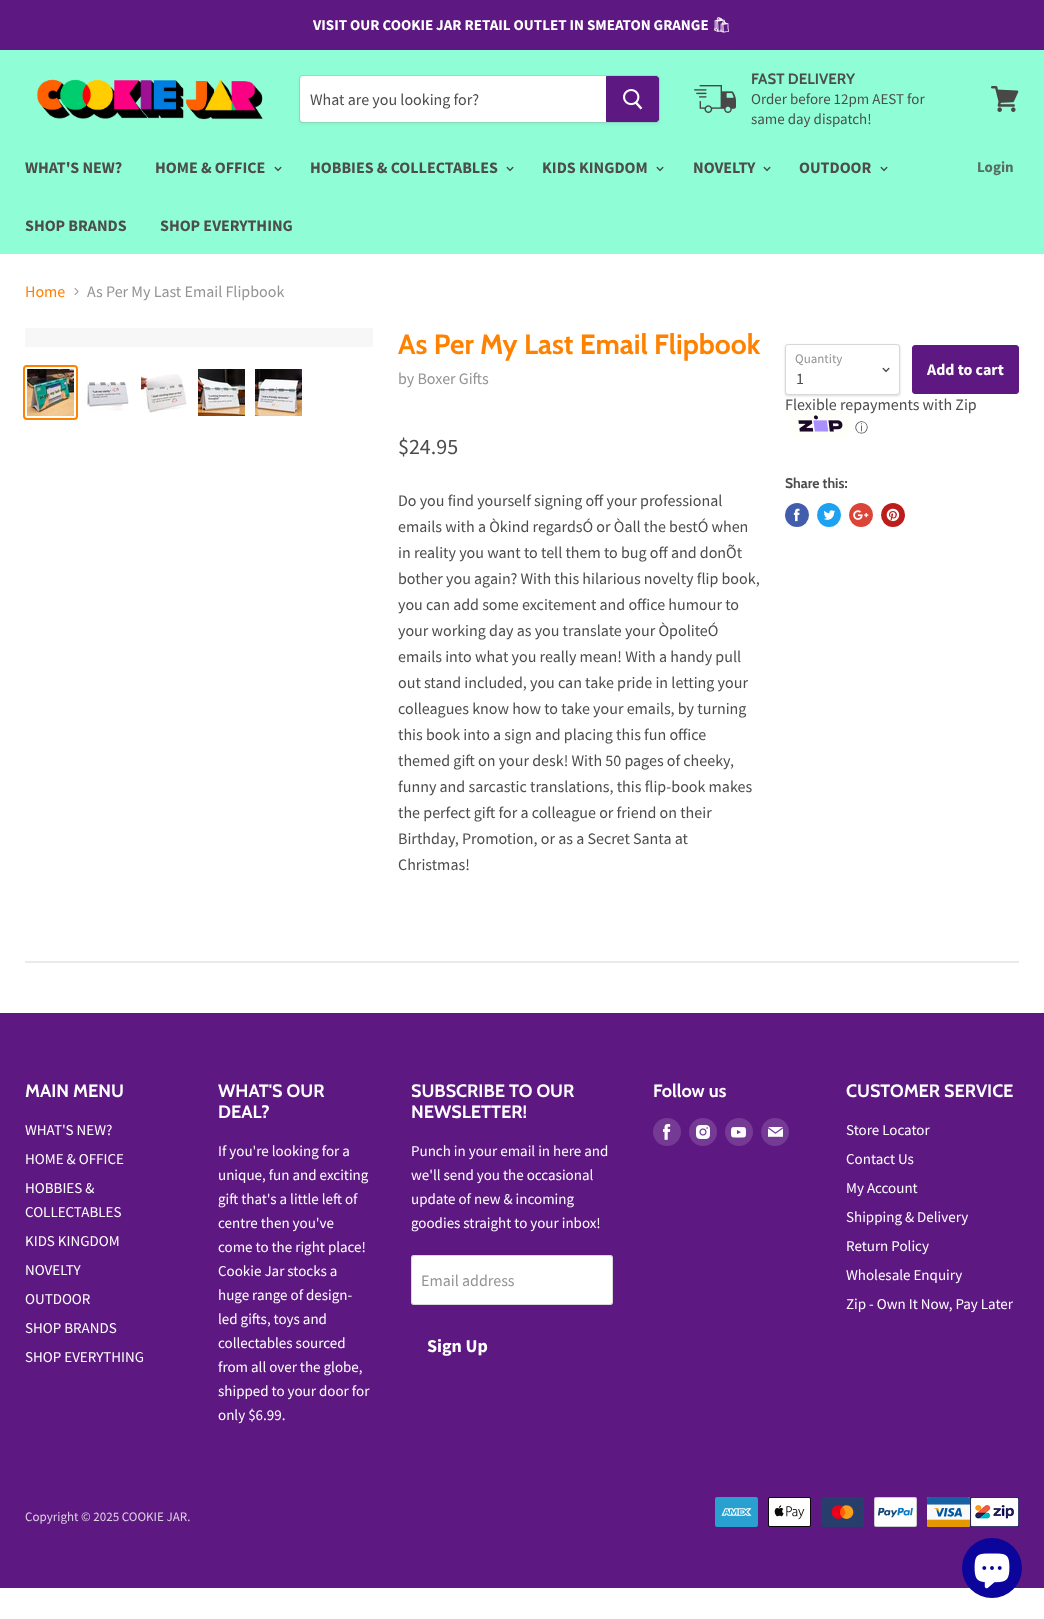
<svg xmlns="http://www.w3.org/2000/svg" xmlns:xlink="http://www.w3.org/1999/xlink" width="1044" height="1619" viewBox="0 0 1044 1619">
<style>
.cls-1{font:bold 15px Source Sans Pro;fill:#ffffff}
.cls-2{font:bold 15px Noto Emoji;fill:#ffffff}
.cls-3{font:16px Source Sans Pro;fill:#4d4d4d}
.cls-4{font:bold 15px Cabin;fill:#4d4d4d}
.cls-5{font:15px Source Sans Pro;fill:#4d4d4d}
.cls-6{font:bold 16px Source Sans Pro;fill:#4d4d4d}
.cls-7{font:bold 15px Source Sans Pro;fill:#566c64}
.cls-8{font:16px Source Sans Pro;fill:#ff8100}
.cls-9{font:16px Source Sans Pro;fill:#949494}
.cls-10{font:bold 28px Cabin;fill:#ff8100}
.cls-11{font:22px Source Sans Pro;fill:#4d4d4d}
.cls-12{font:13px Source Sans Pro;fill:#949494}
.cls-13{font:bold 16px Source Sans Pro;fill:#ffffff}
.cls-14{font:500 13px WenQuanYi Zen Hei;fill:#4d4d4d}
.cls-15{font:bold 14px Cabin;fill:#4d4d4d}
.cls-16{font:bold 18px Cabin;fill:#ffffff}
.cls-17{font:15px Source Sans Pro;fill:#ffffff}
.cls-18{font:bold 18px Source Sans Pro;fill:#ffffff}
.cls-19{font:13px Source Sans Pro;fill:#dfd1e6}
</style>
<defs>
<clipPath id="clip1"><path d="M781 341H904V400H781ZM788 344H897C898.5 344 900 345.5 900 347V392C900 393.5 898.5 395 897 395H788C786.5 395 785 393.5 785 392V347C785 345.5 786.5 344 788 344Z" clip-rule="evenodd"/></clipPath>
</defs>
<rect width="100%" height="100%" fill="#ffffff"/>
<rect fill="#8ffed6" x="0" y="50" width="1044" height="204"/>
<rect fill="#5d1881" x="0" y="0" width="1044" height="50"/>
<image xlink:href="image0.png" x="37" y="79" width="226" height="41"/>
<rect fill="#7f7f7f" fill-opacity="0.11" filter="blur(1.5px)" x="299" y="77" width="361" height="48" rx="4"/>
<path fill="none" stroke="#7f7f7f" stroke-opacity="0.2" d="M302 75.5H656C658 75.5 659.5 77 659.5 79V119C659.5 121 658 122.5 656 122.5H302C300.5 122.5 299.5 121.5 299.5 120V78C299.5 76.5 300.5 75.5 302 75.5Z"/>
<path fill="#ffffff" d="M303 76H606V122H303C301.5 122 300 120.5 300 119V79C300 77.5 301.5 76 303 76Z"/>
<path fill="#5d1881" stroke="#5d1881" d="M606.5 76.5H656C657.5 76.5 658.5 77.5 658.5 79V119C658.5 120.5 657.5 121.5 656 121.5H606.5Z"/>
<image xlink:href="image1.png" x="623" y="89" width="20" height="21"/>
<image xlink:href="image2.png" x="694" y="85" width="42" height="28"/>
<image xlink:href="image3.png" x="991" y="86" width="28" height="26"/>
<image xlink:href="image4.png" x="274" y="166" width="8" height="6"/>
<image xlink:href="image4.png" x="506" y="166" width="8" height="6"/>
<image xlink:href="image4.png" x="656" y="166" width="8" height="6"/>
<image xlink:href="image4.png" x="763" y="166" width="8" height="6"/>
<image xlink:href="image4.png" x="880" y="166" width="8" height="6"/>
<image xlink:href="image5.png" x="74" y="288" width="5" height="7"/>
<rect fill="#f7f7f7" x="25" y="328" width="348" height="19"/>
<rect fill="none" stroke="#ff8100" stroke-width="2" x="24" y="366" width="53" height="53" rx="3"/>
<image xlink:href="image6.png" x="27" y="369" width="47" height="47"/>
<image xlink:href="image7.png" x="84" y="382" width="45" height="29"/>
<image xlink:href="image8.png" x="141" y="374" width="46" height="39"/>
<image xlink:href="image9.png" x="198" y="369" width="47" height="47"/>
<image xlink:href="image10.png" x="255" y="369" width="47" height="47"/>
<g clip-path="url(#clip1)">
<rect fill="#000000" fill-opacity="0.15" filter="blur(1px)" x="785" y="345" width="115" height="51" rx="3"/>
</g>
<rect fill="none" stroke="#7f7f7f" stroke-opacity="0.3" x="785.5" y="344.5" width="114" height="50" rx="2.5"/>
<image xlink:href="image11.png" x="882" y="367" width="8" height="6"/>
<rect fill="#5d1881" stroke="#5d1881" x="912.5" y="345.5" width="106" height="48" rx="2.5"/>
<circle fill="#425dab" cx="797" cy="515" r="12"/>
<image xlink:href="image13.png" x="793" y="508" width="7" height="14"/>
<circle fill="#1da1f2" cx="829" cy="515" r="12"/>
<image xlink:href="image14.png" x="823" y="510" width="13" height="10"/>
<circle fill="#db4437" cx="861" cy="515" r="12"/>
<image xlink:href="image15.png" x="853" y="510" width="16" height="10"/>
<circle fill="#bd1c1c" cx="893" cy="515" r="12"/>
<image xlink:href="image16.png" x="886" y="508" width="14" height="14"/>
<rect fill="#ebebeb" x="25" y="961" width="994" height="2"/>
<rect fill="#5d1881" x="0" y="1013" width="1044" height="575"/>
<rect fill="#ffffff" x="411" y="1255" width="202" height="50" rx="3"/>
<rect fill="none" stroke="#7f7f7f" stroke-opacity="0.3" x="411.5" y="1255.5" width="201" height="49" rx="2.5"/>
<circle fill="#753b94" cx="667" cy="1132" r="14"/>
<image xlink:href="image17.png" x="663" y="1124" width="8" height="16"/>
<circle fill="#753b94" cx="703" cy="1132" r="14"/>
<image xlink:href="image18.png" x="696" y="1125" width="14" height="14"/>
<circle fill="#753b94" cx="739" cy="1132" r="14"/>
<image xlink:href="image19.png" x="731" y="1127" width="15" height="11"/>
<circle fill="#753b94" cx="775" cy="1132" r="14"/>
<image xlink:href="image20.png" x="768" y="1127" width="15" height="10"/>
<image xlink:href="image21.png" x="715" y="1497" width="43" height="30"/>
<image xlink:href="image22.png" x="768" y="1497" width="43" height="30"/>
<image xlink:href="image23.png" x="821" y="1497" width="43" height="30"/>
<image xlink:href="image24.png" x="874" y="1497" width="43" height="30"/>
<image xlink:href="image25.png" x="927" y="1497" width="43" height="30"/>
<image xlink:href="image26.png" x="970" y="1497" width="49" height="30"/>
<circle fill="#0b059c" cx="992" cy="1568" r="30"/>
<image xlink:href="image27.png" x="974" y="1553" width="36" height="36"/>
<text class="cls-1" x="313" y="30">VISIT OUR COOKIE JAR RETAIL OUTLET IN SMEATON GRANGE</text>
<text class="cls-2" x="712" y="30">🛍</text>
<text class="cls-3" x="310" y="105">What are you looking for?</text>
<text class="cls-4" x="751" y="84">FAST DELIVERY</text>
<text class="cls-5"><tspan x="751" y="104">Order before 12pm AEST for</tspan><tspan x="751" y="124">same day dispatch!</tspan></text>
<text class="cls-6" x="25" y="173">WHAT'S NEW?</text>
<text class="cls-6" x="155" y="173">HOME &amp; OFFICE</text>
<text class="cls-6" x="310" y="173">HOBBIES &amp; COLLECTABLES</text>
<text class="cls-6" x="542" y="173">KIDS KINGDOM</text>
<text class="cls-6" x="693" y="173">NOVELTY</text>
<text class="cls-6" x="799" y="173">OUTDOOR</text>
<text class="cls-6" x="25" y="231">SHOP BRANDS</text>
<text class="cls-6" x="160" y="231">SHOP EVERYTHING</text>
<text class="cls-7" x="977" y="172">Login</text>
<text class="cls-8" x="25" y="297">Home</text>
<text class="cls-9" x="87" y="297">As Per My Last Email Flipbook</text>
<text class="cls-10" x="398" y="354">As Per My Last Email Flipbook</text>
<text class="cls-9" x="398" y="384">by Boxer Gifts</text>
<text class="cls-11" x="398" y="454">$24.95</text>
<text class="cls-3"><tspan x="398" y="506">Do you find yourself signing off your professional</tspan><tspan x="398" y="532">emails with a Òkind regardsÓ or Òall the bestÓ when</tspan><tspan x="398" y="558">in reality you want to tell them to bug off and donÕt</tspan><tspan x="398" y="584">bother you again? With this hilarious novelty flip book,</tspan><tspan x="398" y="610">you can add some excitement and office humour to</tspan><tspan x="398" y="636">your working day as you translate your ÒpoliteÓ</tspan><tspan x="398" y="662">emails into what you really mean! With a handy pull</tspan><tspan x="398" y="688">out stand included, you can take pride in letting your</tspan><tspan x="398" y="714">colleagues know how to take your emails, by turning</tspan><tspan x="398" y="740">this book into a sign and placing this fun office</tspan><tspan x="398" y="766">themed gift on your desk! With 50 pages of cheeky,</tspan><tspan x="398" y="792">funny and sarcastic translations, this flip-book makes</tspan><tspan x="398" y="818">the perfect gift for a colleague or friend on their</tspan><tspan x="398" y="844">Birthday, Promotion, or as a Secret Santa at</tspan><tspan x="398" y="870">Christmas!</tspan></text>
<text class="cls-12" x="795" y="363">Quantity</text>
<text class="cls-3" x="796" y="384">1</text>
<text class="cls-13" x="927" y="375">Add to cart</text>
<text class="cls-3" x="785" y="410">Flexible repayments with Zip</text>
<image xlink:href="image12.png" x="790" y="411" width="60" height="27"/>
<text class="cls-14" x="855" y="432">ⓘ</text>
<text class="cls-15" x="785" y="488">Share this:</text>
<text class="cls-16" x="25" y="1097">MAIN MENU</text>
<text class="cls-17"><tspan x="25" y="1135">WHAT'S NEW?</tspan><tspan x="25" y="1164">HOME &amp; OFFICE</tspan><tspan x="25" y="1193">HOBBIES &amp;</tspan><tspan x="25" y="1217">COLLECTABLES</tspan><tspan x="25" y="1246">KIDS KINGDOM</tspan><tspan x="25" y="1275">NOVELTY</tspan><tspan x="25" y="1304">OUTDOOR</tspan><tspan x="25" y="1333">SHOP BRANDS</tspan><tspan x="25" y="1362">SHOP EVERYTHING</tspan></text>
<text class="cls-16"><tspan x="218" y="1097">WHAT'S OUR</tspan><tspan x="218" y="1118">DEAL?</tspan></text>
<text class="cls-17"><tspan x="218" y="1156">If you're looking for a</tspan><tspan x="218" y="1180">unique, fun and exciting</tspan><tspan x="218" y="1204">gift that's a little left of</tspan><tspan x="218" y="1228">centre then you've</tspan><tspan x="218" y="1252">come to the right place!</tspan><tspan x="218" y="1276">Cookie Jar stocks a</tspan><tspan x="218" y="1300">huge range of design-</tspan><tspan x="218" y="1324">led gifts, toys and</tspan><tspan x="218" y="1348">collectables sourced</tspan><tspan x="218" y="1372">from all over the globe,</tspan><tspan x="218" y="1396">shipped to your door for</tspan><tspan x="218" y="1420">only $6.99.</tspan></text>
<text class="cls-16"><tspan x="411" y="1097">SUBSCRIBE TO OUR</tspan><tspan x="411" y="1118">NEWSLETTER!</tspan></text>
<text class="cls-17"><tspan x="411" y="1156">Punch in your email in here and</tspan><tspan x="411" y="1180">we'll send you the occasional</tspan><tspan x="411" y="1204">update of new &amp; incoming</tspan><tspan x="411" y="1228">goodies straight to your inbox!</tspan></text>
<text class="cls-9" x="421" y="1286">Email address</text>
<text class="cls-18" x="427" y="1352">Sign Up</text>
<text class="cls-16" x="653" y="1097">Follow us</text>
<text class="cls-16" x="846" y="1097">CUSTOMER SERVICE</text>
<text class="cls-17"><tspan x="846" y="1135">Store Locator</tspan><tspan x="846" y="1164">Contact Us</tspan><tspan x="846" y="1193">My Account</tspan><tspan x="846" y="1222">Shipping &amp; Delivery</tspan><tspan x="846" y="1251">Return Policy</tspan><tspan x="846" y="1280">Wholesale Enquiry</tspan><tspan x="846" y="1309">Zip - Own It Now, Pay Later</tspan></text>
<text class="cls-19" x="25" y="1521">Copyright © 2025 COOKIE JAR.</text>
</svg>
